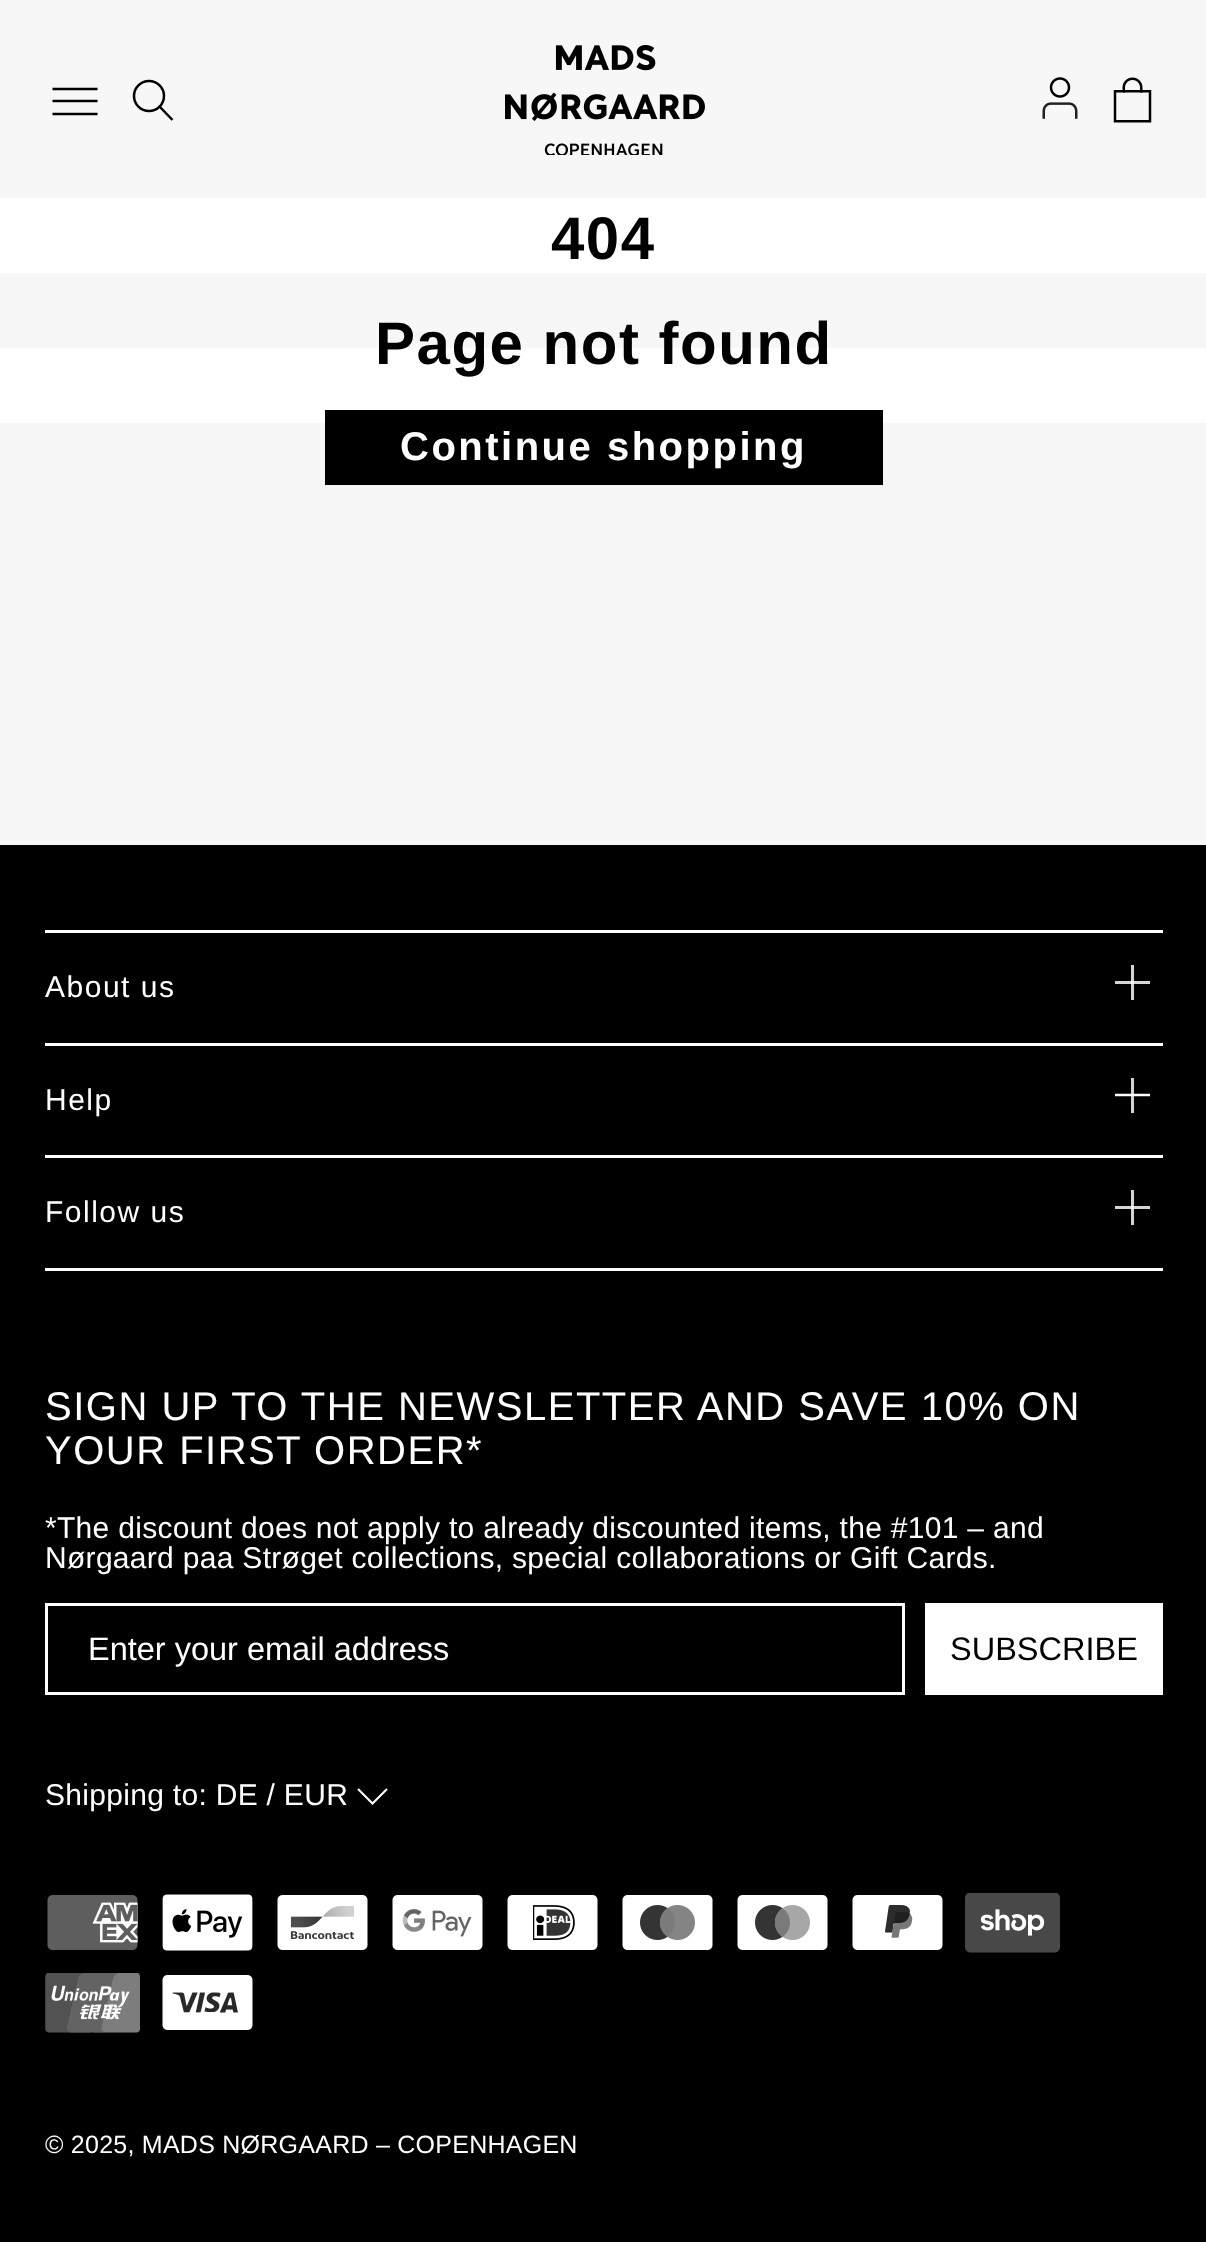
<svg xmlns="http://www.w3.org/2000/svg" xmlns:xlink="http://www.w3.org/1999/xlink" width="1206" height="2242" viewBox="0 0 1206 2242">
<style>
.cls-1{font:bold 60px Liberation Sans;letter-spacing:1.5px;fill:#000000}
.cls-2{font:bold 40px Liberation Sans;letter-spacing:2.5px;fill:#ffffff}
.cls-3{font:30px Liberation Sans;letter-spacing:1.5px;fill:#ffffff}
.cls-4{font:40px Liberation Sans;letter-spacing:1.5px;fill:#ffffff}
.cls-5{font:30px Liberation Sans;letter-spacing:0.3px;fill:#ffffff}
.cls-6{font:32.5px Liberation Sans;fill:#ffffff}
.cls-7{font:32.5px Liberation Sans;fill:#000000}
.cls-8{font:25px Liberation Sans;letter-spacing:0.25px;fill:#ffffff}
</style>
<rect width="100%" height="100%" fill="#f7f7f7"/>
<image xlink:href="image0.png" x="505" y="45" width="200" height="110"/>
<path fill="none" stroke="#000000" stroke-width="2.5" d="M52.5 89H97.5M52.5 101H97.5M52.5 114H97.5"/>
<circle fill="none" stroke="#000000" stroke-width="2.5" cx="149" cy="96" r="15"/>
<path fill="none" stroke="#000000" stroke-width="2.5" d="M159 106L172.5 120"/>
<image xlink:href="image1.png" x="1042" y="77" width="36" height="42"/>
<image xlink:href="image2.png" x="1113" y="77" width="39" height="46"/>
<rect fill="#ffffff" x="0" y="198" width="1206" height="75"/>
<rect fill="#ffffff" x="0" y="348" width="1206" height="75"/>
<rect fill="#000000" x="325" y="410" width="558" height="75"/>
<rect fill="#000000" x="0" y="845" width="1206" height="1397"/>
<rect fill="#d4d4d4" x="1131" y="1190" width="3" height="35"/>
<rect fill="#d4d4d4" x="1131" y="965" width="3" height="35"/>
<rect fill="#ffffff" x="45" y="930" width="1118" height="3"/>
<rect fill="#ffffff" x="45" y="1043" width="1118" height="3"/>
<rect fill="#d5d5d5" x="1115" y="981" width="35" height="3"/>
<rect fill="#f8f8f8" x="1131" y="981" width="3" height="3"/>
<rect fill="#ffffff" x="45" y="1155" width="1118" height="3"/>
<path fill="none" stroke="#ffffff" stroke-width="2.5" d="M1115 1095H1150"/>
<rect fill="#ffffff" fill-opacity="0.83" x="1131" y="1078" width="3" height="35"/>
<rect fill="#ffffff" x="45" y="1268" width="1118" height="3"/>
<rect fill="#d5d5d5" x="1115" y="1206" width="35" height="3"/>
<rect fill="#f8f8f8" x="1131" y="1206" width="3" height="3"/>
<rect fill="none" stroke="#ffffff" stroke-width="3" x="46.5" y="1604.5" width="857" height="89"/>
<rect fill="#ffffff" x="925" y="1603" width="238" height="92"/>
<path fill="none" stroke="#ffffff" stroke-width="2.1" d="M358 1789L372.5 1803.5L387 1789"/>
<image xlink:href="image3.png" x="47" y="1895" width="91" height="55"/>
<image xlink:href="image4.png" x="162" y="1894" width="91" height="57"/>
<image xlink:href="image5.png" x="277" y="1895" width="91" height="55"/>
<image xlink:href="image6.png" x="392" y="1895" width="91" height="55"/>
<image xlink:href="image7.png" x="507" y="1895" width="91" height="55"/>
<image xlink:href="image8.png" x="622" y="1895" width="91" height="55"/>
<image xlink:href="image9.png" x="737" y="1895" width="91" height="55"/>
<image xlink:href="image10.png" x="852" y="1895" width="91" height="55"/>
<image xlink:href="image11.png" x="965" y="1893" width="95" height="60"/>
<image xlink:href="image12.png" x="45" y="1973" width="95" height="60"/>
<image xlink:href="image13.png" x="162" y="1975" width="91" height="55"/>
<text class="cls-1" x="551" y="259">404</text>
<text class="cls-1" x="375" y="364">Page not found</text>
<text class="cls-2" x="400" y="460">Continue shopping</text>
<text class="cls-3" x="45" y="997">About us</text>
<text class="cls-3" x="45" y="1110">Help</text>
<text class="cls-3" x="45" y="1222">Follow us</text>
<text class="cls-4"><tspan x="45" y="1420">SIGN UP TO THE NEWSLETTER AND SAVE 10% ON</tspan><tspan x="45" y="1464">YOUR FIRST ORDER*</tspan></text>
<text class="cls-5"><tspan x="45" y="1538">*The discount does not apply to already discounted items, the #101 – and</tspan><tspan x="45" y="1568">Nørgaard paa Strøget collections, special collaborations or Gift Cards.</tspan></text>
<text class="cls-6" x="88" y="1660">Enter your email address</text>
<text class="cls-7" x="950" y="1660">SUBSCRIBE</text>
<text class="cls-5" x="45" y="1805">Shipping to: DE / EUR</text>
<text class="cls-8" x="45" y="2153">© 2025, MADS NØRGAARD – COPENHAGEN</text>
</svg>
